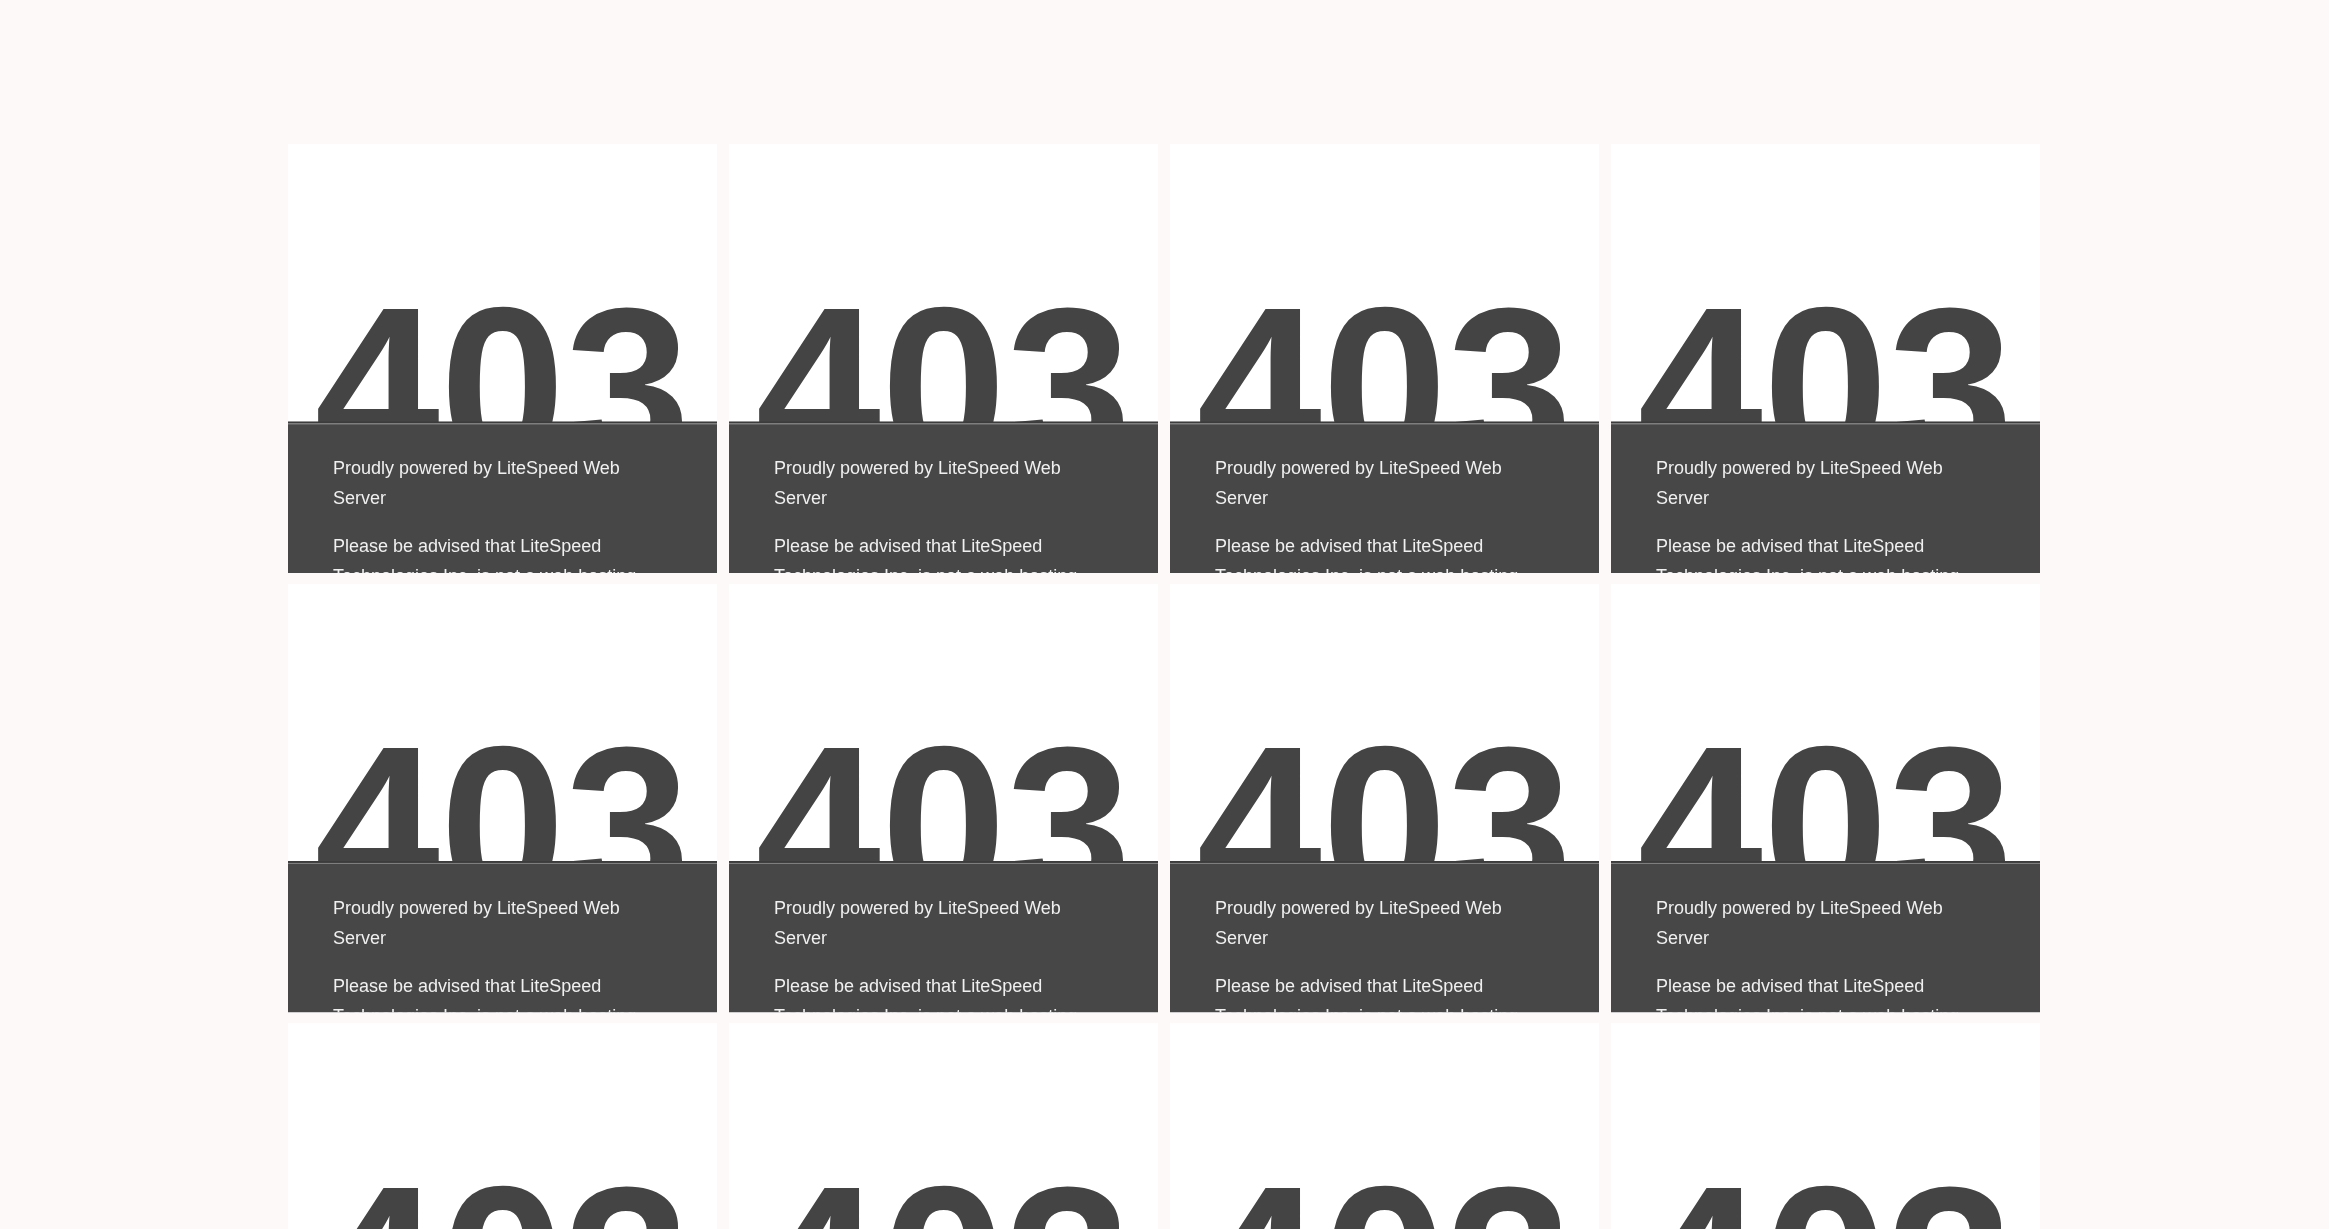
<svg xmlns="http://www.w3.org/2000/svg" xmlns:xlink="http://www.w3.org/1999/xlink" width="2329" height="1229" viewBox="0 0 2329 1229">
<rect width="100%" height="100%" fill="#fef9f9"/>
<image xlink:href="image0.png" x="288" y="144" width="429" height="429"/>
<image xlink:href="image0.png" x="729" y="144" width="429" height="429"/>
<image xlink:href="image0.png" x="1170" y="144" width="429" height="429"/>
<image xlink:href="image0.png" x="1611" y="144" width="429" height="429"/>
<image xlink:href="image1.png" x="288" y="584" width="429" height="429"/>
<image xlink:href="image1.png" x="729" y="584" width="429" height="429"/>
<image xlink:href="image1.png" x="1170" y="584" width="429" height="429"/>
<image xlink:href="image1.png" x="1611" y="584" width="429" height="429"/>
<image xlink:href="image2.png" x="288" y="1023" width="429" height="206"/>
<image xlink:href="image2.png" x="729" y="1023" width="429" height="206"/>
<image xlink:href="image2.png" x="1170" y="1023" width="429" height="206"/>
<image xlink:href="image2.png" x="1611" y="1023" width="429" height="206"/>
</svg>
